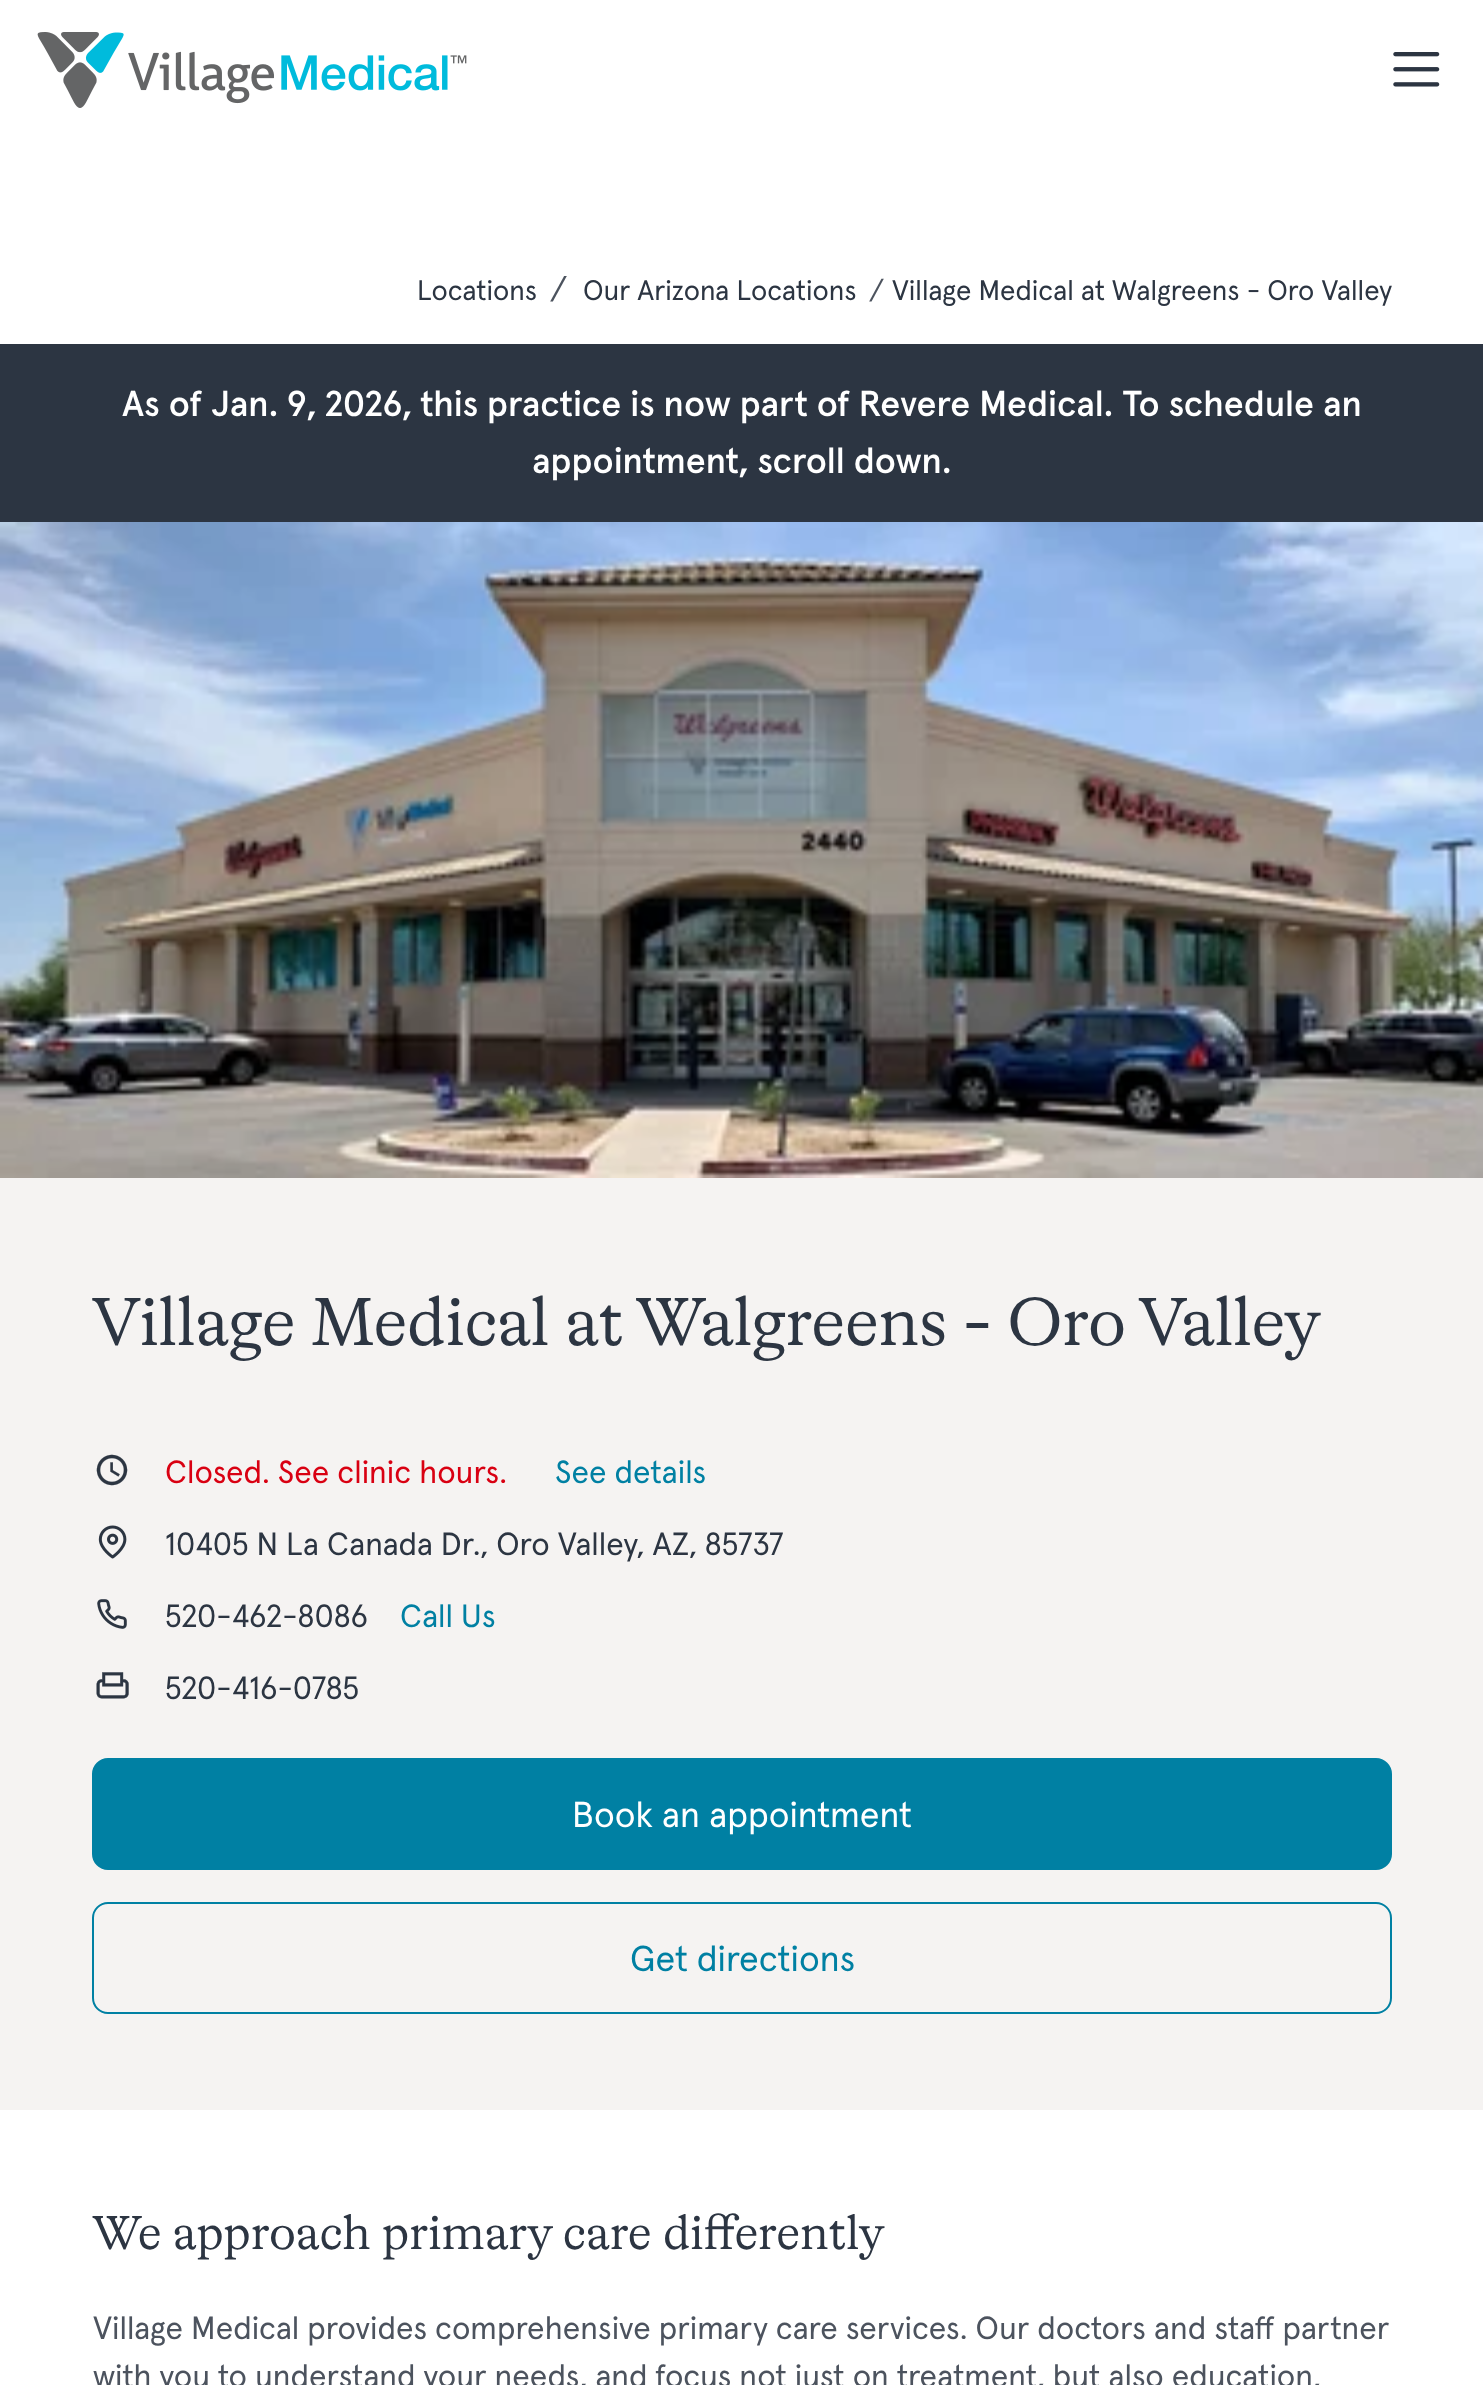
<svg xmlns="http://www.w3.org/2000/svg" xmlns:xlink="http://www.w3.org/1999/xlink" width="1483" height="2385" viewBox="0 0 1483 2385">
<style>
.cls-1{font:28.2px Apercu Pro;fill:#2c3542}
.cls-2{font:32px Apercu Pro;fill:#4c535e}
.cls-3{font:28.2px Apercu Pro;fill:#4c535e}
.cls-4{font:500 36px Apercu Pro;fill:#ffffff}
.cls-5{font:300 68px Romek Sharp;fill:#2c3542}
.cls-6{font:32px Apercu Pro;fill:#d90012}
.cls-7{font:32px Apercu Pro;fill:#0080a3}
.cls-8{font:32px Apercu Pro;fill:#2c3542}
.cls-9{font:36px Apercu Pro;fill:#ffffff}
.cls-10{font:36px Apercu Pro;fill:#0080a3}
.cls-11{font:300 48px Romek Sharp;fill:#2c3542}
</style>
<rect width="100%" height="100%" fill="#ffffff"/>
<image xlink:href="image0.png" x="37" y="32" width="430" height="76"/>
<image xlink:href="image1.png" x="1393" y="52" width="47" height="35"/>
<rect fill="#2c3542" x="0" y="344" width="1483" height="178"/>
<rect fill="#f5f3f2" x="0" y="1178" width="1483" height="932"/>
<image xlink:href="image2.png" x="0" y="522" width="1483" height="656"/>
<image xlink:href="image3.png" x="96" y="1454" width="32" height="32"/>
<image xlink:href="image4.png" x="98" y="1525" width="29" height="34"/>
<image xlink:href="image5.png" x="97" y="1599" width="30" height="30"/>
<image xlink:href="image6.png" x="96" y="1672" width="33" height="27"/>
<rect fill="#0080a3" stroke="#0080a3" stroke-width="2" x="93" y="1759" width="1298" height="110" rx="15"/>
<rect fill="none" stroke="#0080a3" stroke-width="2" x="93" y="1903" width="1298" height="110" rx="15"/>
<text class="cls-1" x="417" y="300">Locations</text>
<text class="cls-2" x="550" y="300">/</text>
<text class="cls-1" x="583" y="300">Our Arizona Locations</text>
<text class="cls-3" x="869" y="300">/</text>
<text class="cls-1" x="892" y="300">Village Medical at Walgreens - Oro Valley</text>
<text class="cls-4" x="122" y="416">As of Jan. 9, 2026, this practice is now part of Revere Medical. To schedule an</text>
<text class="cls-4" x="532" y="473">appointment, scroll down.</text>
<text class="cls-5" x="93" y="1345">Village Medical at Walgreens - Oro Valley</text>
<text class="cls-6" x="165" y="1483">Closed. See clinic hours.</text>
<text class="cls-7" x="555" y="1483">See details</text>
<text class="cls-8" x="165" y="1555">10405 N La Canada Dr., Oro Valley, AZ, 85737</text>
<text class="cls-8" x="165" y="1627">520-462-8086</text>
<text class="cls-7" x="400" y="1627">Call Us</text>
<text class="cls-8" x="165" y="1699">520-416-0785</text>
<text class="cls-9" x="572" y="1827">Book an appointment</text>
<text class="cls-10" x="630" y="1971">Get directions</text>
<text class="cls-11" x="93" y="2249">We approach primary care differently</text>
<text class="cls-2"><tspan x="93" y="2339">Village Medical provides comprehensive primary care services. Our doctors and staff partner</tspan><tspan x="93" y="2387">with you to understand your needs, and focus not just on treatment, but also education,</tspan></text>
</svg>
